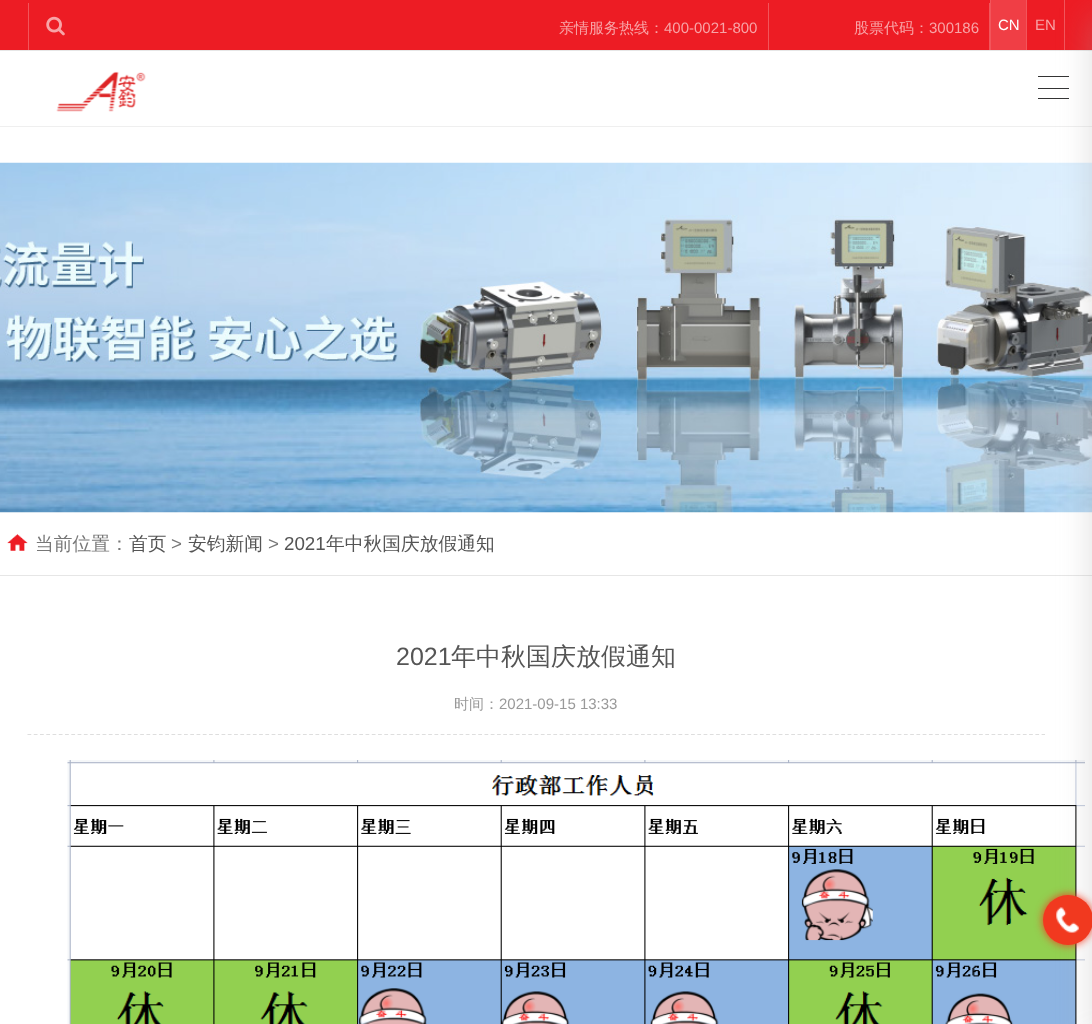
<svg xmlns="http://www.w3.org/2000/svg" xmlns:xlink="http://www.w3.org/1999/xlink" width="1092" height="1024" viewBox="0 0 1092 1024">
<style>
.cls-1{font:500 15px WenQuanYi Zen Hei;fill:#f8a4a7}
.cls-2{font:15px Liberation Sans;fill:#f8a4a7}
.cls-3{font:15px Liberation Sans;fill:#ffffff}
.cls-4{font:500 18.75px WenQuanYi Zen Hei;fill:#777777}
.cls-5{font:500 18.75px WenQuanYi Zen Hei;fill:#555555}
.cls-6{font:18.75px Liberation Sans;fill:#777777}
.cls-7{font:18.75px Liberation Sans;fill:#555555}
.cls-8{font:25px Liberation Sans;fill:#555555}
.cls-9{font:500 25px WenQuanYi Zen Hei;fill:#555555}
.cls-10{font:500 15px WenQuanYi Zen Hei;fill:#999999}
.cls-11{font:15px Liberation Sans;fill:#999999}
</style>
<rect width="100%" height="100%" fill="#ffffff"/>
<rect fill="#ed1c24" x="0" y="0" width="1092" height="50"/>
<rect fill="#e6e6e6" x="0" y="50" width="1092" height="1"/>
<rect fill="#f2555b" x="28" y="3" width="1" height="47"/>
<image xlink:href="image0.png" x="46" y="16" width="19" height="20"/>
<rect fill="#f2555b" x="768" y="3" width="1" height="47"/>
<rect fill="#f2555b" x="989" y="3" width="1" height="47"/>
<rect fill="#f2555b" x="1064" y="0" width="1" height="50"/>
<rect fill="#f2555b" x="990" y="0" width="1" height="50"/>
<rect fill="#f03e45" x="991" y="0" width="35" height="50"/>
<rect fill="#f2555b" x="1026" y="0" width="1" height="50"/>
<rect fill="#efefef" x="0" y="126" width="1092" height="1"/>
<rect fill="#333333" x="1038" y="88" width="31" height="1"/>
<rect fill="#333333" x="1038" y="76" width="31" height="1"/>
<rect fill="#333333" x="1038" y="98" width="31" height="1"/>
<image xlink:href="image2.png" x="0" y="162" width="1092" height="351"/>
<rect fill="#e6e6e6" x="0" y="575" width="1092" height="1"/>
<path fill="none" stroke="#dedede" stroke-width="1.2" stroke-dasharray="3.75 2.51" d="M27.5 734.5H1045"/>
<image xlink:href="image4.png" x="67" y="760" width="1018" height="264"/>
<rect fill="#a7a5a5" fill-opacity="0.38" filter="blur(17px)" x="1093" y="19" width="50" height="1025"/>
<image xlink:href="image1.png" x="56" y="71" width="90" height="41"/>
<image xlink:href="image3.png" x="7" y="534" width="21" height="17"/>
<rect fill="#f1391f" filter="blur(4px)" x="1043" y="895" width="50" height="50" rx="25"/>
<circle fill="#f1391f" cx="1068" cy="920" r="25"/>
<image xlink:href="image5.png" x="1056" y="907" width="23" height="26"/>
<text class="cls-1" x="559" y="33">亲情服务热线：</text>
<text class="cls-2" x="664" y="33">400-0021-800</text>
<text class="cls-1" x="854" y="33">股票代码：</text>
<text class="cls-2" x="929" y="33">300186</text>
<text class="cls-3" x="998" y="30">CN</text>
<text class="cls-2" x="1035" y="30">EN</text>
<text class="cls-4" x="35" y="550">当前位置：</text>
<text class="cls-5" x="129" y="550">首页</text>
<text class="cls-6" x="171" y="550">&gt;</text>
<text class="cls-5" x="188" y="550">安钧新闻</text>
<text class="cls-6" x="268" y="550">&gt;</text>
<text class="cls-7" x="284" y="550">2021</text>
<text class="cls-5" x="326" y="550">年中秋国庆放假通知</text>
<text class="cls-8" x="396" y="665">2021</text>
<text class="cls-9" x="451" y="665">年中秋国庆放假通知</text>
<text class="cls-10" x="454" y="709">时间：</text>
<text class="cls-11" x="499" y="709">2021-09-15 13:33</text>
</svg>
